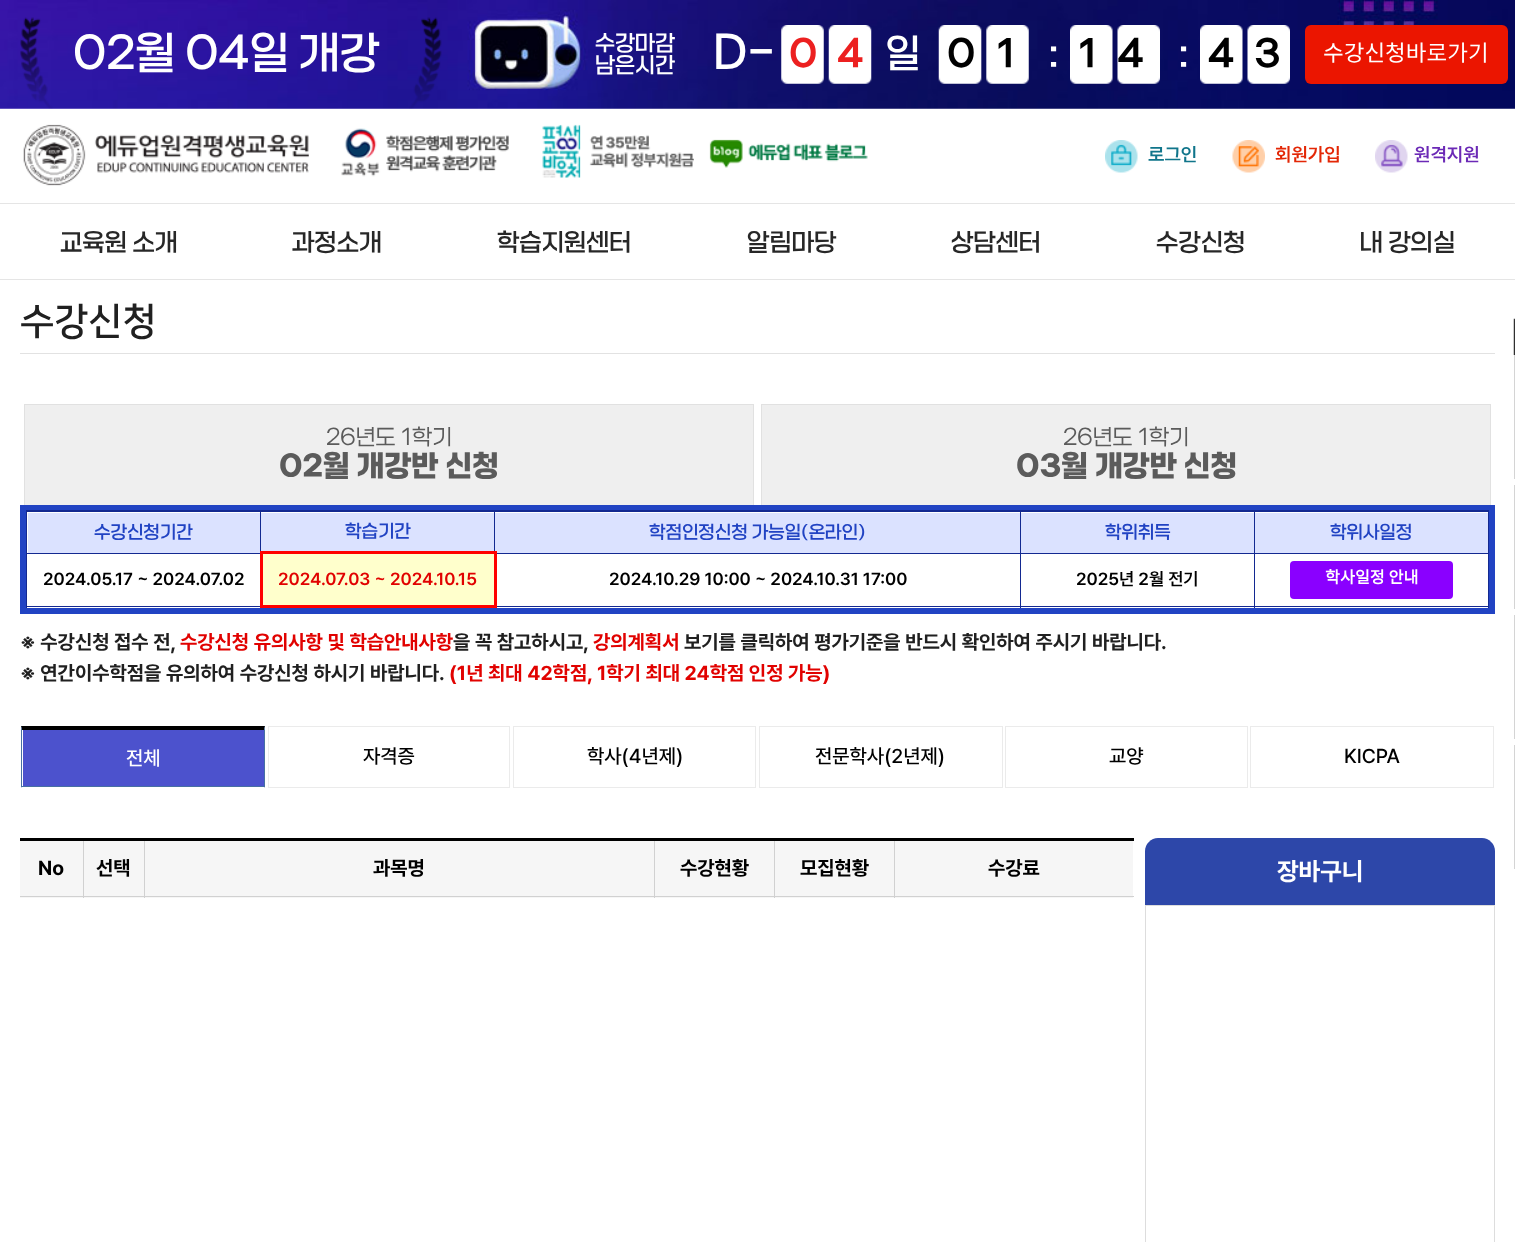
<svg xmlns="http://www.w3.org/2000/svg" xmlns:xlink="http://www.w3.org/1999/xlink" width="1515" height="1242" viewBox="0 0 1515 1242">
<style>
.cls-1{font:500 42.5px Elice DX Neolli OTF;fill:#ffffff}
.cls-2{font:500 21.25px Elice DX Neolli OTF;fill:#ffffff}
.cls-3{font:500 44px Elice DX Neolli OTF;fill:#ffffff}
.cls-4{font:bold 35px Elice DX Neolli OTF;letter-spacing:21px;fill:#ec2020}
.cls-5{font:500 37.5px Elice DX Neolli OTF;fill:#ffffff}
.cls-6{font:bold 35px Elice DX Neolli OTF;letter-spacing:21px;fill:#000000}
.cls-7{font:22.5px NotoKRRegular;fill:#ffffff}
.cls-8{font:600 19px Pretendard;fill:#10758b}
.cls-9{font:600 19px Pretendard;fill:#e32706}
.cls-10{font:600 19px Pretendard;fill:#6b29b6}
.cls-11{font:500 23.75px Elice DX Neolli OTF;fill:#272727}
.cls-12{font:bold 37.5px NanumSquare;fill:#202020}
.cls-13{font:300 21.25px Elice DX Neolli OTF;fill:#5b5b5b}
.cls-14{font:bold 28.75px 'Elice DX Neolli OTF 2';fill:#5b5b5b}
.cls-15{font:500 17.5px Elice DX Neolli OTF;fill:#2143c3}
.cls-16{font:600 17.5px Pretendard;fill:#000000}
.cls-17{font:600 17.5px Pretendard;fill:#e10200}
.cls-18{font:bold 16.25px NotoKRRegular;fill:#ffffff}
.cls-19{font:bold 20px Pretendard;fill:#202020}
.cls-20{font:bold 20px Pretendard;fill:#e10200}
.cls-21{font:500 20px Pretendard;fill:#ffffff}
.cls-22{font:500 20px Pretendard;fill:#000000}
.cls-23{font:bold 20px Pretendard;fill:#000000}
.cls-24{font:bold 25px Pretendard;fill:#ffffff}
</style>
<rect width="100%" height="100%" fill="#ffffff"/>
<image xlink:href="image0.png" x="0" y="0" width="1515" height="109"/>
<image xlink:href="image1.png" x="20" y="17" width="422" height="92"/>
<image xlink:href="image2.png" x="781" y="25" width="91" height="59"/>
<image xlink:href="image3.png" x="938" y="25" width="91" height="59"/>
<image xlink:href="image4.png" x="1070" y="25" width="90" height="59"/>
<image xlink:href="image5.png" x="1200" y="25" width="90" height="59"/>
<rect fill="#eb1500" x="1305" y="25" width="203" height="59" rx="6"/>
<image xlink:href="image6.png" x="23" y="124" width="286" height="62"/>
<image xlink:href="image7.png" x="341" y="128" width="168" height="49"/>
<image xlink:href="image8.png" x="542" y="124" width="152" height="54"/>
<image xlink:href="image9.png" x="709" y="139" width="159" height="29"/>
<image xlink:href="image10.png" x="1105" y="140" width="33" height="33"/>
<image xlink:href="image11.png" x="1232" y="140" width="33" height="33"/>
<image xlink:href="image12.png" x="1375" y="140" width="33" height="33"/>
<rect fill="#e5e5e5" x="0" y="203" width="1515" height="1"/>
<rect fill="#e5e5e5" x="0" y="279" width="1515" height="1"/>
<rect fill="#e2e2e2" x="20" y="353" width="1475" height="1"/>
<rect fill="#efefef" x="25" y="405" width="728" height="100"/>
<rect fill="#e1e1e1" x="24" y="404" width="730" height="1"/>
<rect fill="#e1e1e1" x="753" y="404" width="1" height="101"/>
<rect fill="#e1e1e1" x="24" y="404" width="1" height="101"/>
<rect fill="#efefef" x="762" y="405" width="728" height="100"/>
<rect fill="#e1e1e1" x="761" y="404" width="730" height="1"/>
<rect fill="#e1e1e1" x="1490" y="404" width="1" height="101"/>
<rect fill="#e1e1e1" x="761" y="404" width="1" height="101"/>
<rect fill="#2143c3" x="20" y="505" width="1475" height="109"/>
<rect fill="#ffffff" x="27" y="512" width="1461" height="96"/>
<rect fill="#132991" x="26" y="510" width="1463" height="1"/>
<rect fill="#132991" x="1488" y="510" width="1" height="98"/>
<rect fill="#132991" x="26" y="606" width="1463" height="1"/>
<rect fill="#132991" x="26" y="510" width="1" height="98"/>
<rect fill="#dbe2ff" x="28" y="513" width="232" height="40"/>
<rect fill="#132991" x="1254" y="511" width="235" height="1"/>
<rect fill="#132991" x="1254" y="553" width="235" height="1"/>
<rect fill="#132991" x="1254" y="553" width="1" height="55"/>
<rect fill="#132991" x="1020" y="553" width="235" height="1"/>
<rect fill="#132991" x="1254" y="511" width="1" height="43"/>
<rect fill="#132991" x="1020" y="511" width="235" height="1"/>
<rect fill="#132991" x="1020" y="553" width="1" height="55"/>
<rect fill="#132991" x="494" y="553" width="527" height="1"/>
<rect fill="#132991" x="1020" y="511" width="1" height="43"/>
<rect fill="#132991" x="494" y="511" width="527" height="1"/>
<rect fill="#132991" x="494" y="511" width="1" height="43"/>
<rect fill="#132991" x="260" y="511" width="235" height="1"/>
<rect fill="#132991" x="26" y="553" width="235" height="1"/>
<rect fill="#132991" x="260" y="511" width="1" height="43"/>
<rect fill="#132991" x="26" y="511" width="235" height="1"/>
<rect fill="#dbe2ff" x="261" y="513" width="233" height="38"/>
<rect fill="#dbe2ff" x="495" y="513" width="525" height="40"/>
<rect fill="#dbe2ff" x="1021" y="513" width="233" height="40"/>
<rect fill="#dbe2ff" x="1255" y="513" width="233" height="40"/>
<rect fill="#ffffcc" x="263" y="554" width="231" height="51"/>
<rect fill="#ff0000" x="260" y="551" width="236" height="3"/>
<rect fill="#ff0000" x="494" y="551" width="3" height="57"/>
<rect fill="#ff0000" x="260" y="605" width="236" height="3"/>
<rect fill="#ff0000" x="260" y="551" width="3" height="57"/>
<rect fill="#8a00ff" x="1290" y="561" width="163" height="38" rx="4"/>
<rect fill="#4c52cd" x="23" y="730" width="241" height="56"/>
<path fill="#000000" d="M21 726H265L264 730H22Z"/>
<path fill="#4770a3" d="M265 726V788L264 786V730Z"/>
<rect fill="#4770a3" x="21" y="786" width="244" height="1"/>
<path fill="#4770a3" d="M21 788V726L22 730V786Z"/>
<rect fill="none" stroke="#ebebeb" x="268.5" y="726.5" width="241" height="61"/>
<rect fill="none" stroke="#ebebeb" x="513.5" y="726.5" width="242" height="61"/>
<rect fill="none" stroke="#ebebeb" x="759.5" y="726.5" width="243" height="61"/>
<rect fill="none" stroke="#ebebeb" x="1005.5" y="726.5" width="242" height="61"/>
<rect fill="none" stroke="#ebebeb" x="1250.5" y="726.5" width="243" height="61"/>
<rect fill="#f6f6f6" x="84" y="841" width="60" height="57"/>
<rect fill="#f6f6f6" x="145" y="841" width="509" height="57"/>
<rect fill="#f6f6f6" x="655" y="841" width="119" height="57"/>
<rect fill="#f6f6f6" x="775" y="841" width="119" height="57"/>
<rect fill="#f6f6f6" x="895" y="841" width="238" height="57"/>
<rect fill="#d1d1d1" x="894" y="896" width="240" height="1"/>
<rect fill="#d1d1d1" x="894" y="839" width="1" height="59"/>
<rect fill="#d1d1d1" x="774" y="896" width="121" height="1"/>
<rect fill="#d1d1d1" x="774" y="839" width="1" height="59"/>
<rect fill="#d1d1d1" x="654" y="896" width="121" height="1"/>
<rect fill="#d1d1d1" x="654" y="839" width="1" height="59"/>
<rect fill="#d1d1d1" x="144" y="896" width="511" height="1"/>
<rect fill="#d1d1d1" x="144" y="839" width="1" height="59"/>
<rect fill="#d1d1d1" x="83" y="896" width="62" height="1"/>
<rect fill="#d1d1d1" x="83" y="839" width="1" height="59"/>
<rect fill="#000000" x="20" y="838" width="1114" height="3"/>
<rect fill="#f6f6f6" x="20" y="841" width="63" height="57"/>
<rect fill="#d1d1d1" x="20" y="896" width="64" height="1"/>
<path fill="#2d47a9" d="M1158 838H1482C1489 838 1495 844 1495 851V905H1145V851C1145 844 1151 838 1158 838Z"/>
<rect fill="none" stroke="#dddddd" x="1145.5" y="905.5" width="349" height="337"/>
<image xlink:href="image13.png" x="1513" y="318" width="2" height="37"/>
<rect fill="none" stroke="#d4d4d4" x="1514.5" y="355.5" width="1" height="123"/>
<rect fill="none" stroke="#d4d4d4" x="1514.5" y="485.5" width="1" height="123"/>
<rect fill="none" stroke="#d4d4d4" x="1514.5" y="615.5" width="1" height="123"/>
<rect fill="none" stroke="#d4d4d4" x="1514.5" y="745.5" width="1" height="123"/>
<text class="cls-1" x="73" y="65">02월 04일 개강</text>
<text class="cls-2"><tspan x="595" y="49">수강마감</tspan><tspan x="595" y="71">남은시간</tspan></text>
<text class="cls-3" x="713" y="65">D-</text>
<text class="cls-4" x="789" y="64">04</text>
<text class="cls-5" x="885" y="64">일</text>
<text class="cls-6" x="947" y="64">01</text>
<text class="cls-5" x="1046" y="64">:</text>
<text class="cls-6" x="1077" y="64">14</text>
<text class="cls-5" x="1176" y="64">:</text>
<text class="cls-6" x="1208" y="64">43</text>
<text class="cls-7" x="1323" y="61">수강신청바로가기</text>
<text class="cls-8" x="1148" y="161">로그인</text>
<text class="cls-9" x="1275" y="161">회원가입</text>
<text class="cls-10" x="1414" y="161">원격지원</text>
<text class="cls-11" x="60" y="249">교육원 소개</text>
<text class="cls-11" x="292" y="249">과정소개</text>
<text class="cls-11" x="497" y="249">학습지원센터</text>
<text class="cls-11" x="747" y="249">알림마당</text>
<text class="cls-11" x="951" y="249">상담센터</text>
<text class="cls-11" x="1156" y="249">수강신청</text>
<text class="cls-11" x="1360" y="249">내 강의실</text>
<text class="cls-12" x="20" y="333">수강신청</text>
<text class="cls-13" x="326" y="443">26년도 1학기</text>
<text class="cls-14" x="279" y="474">02월 개강반 신청</text>
<text class="cls-13" x="1063" y="443">26년도 1학기</text>
<text class="cls-14" x="1016" y="474">03월 개강반 신청</text>
<text class="cls-15" x="94" y="537">수강신청기간</text>
<text class="cls-15" x="345" y="536">학습기간</text>
<text class="cls-15" x="649" y="537">학점인정신청 가능일(온라인)</text>
<text class="cls-15" x="1105" y="537">학위취득</text>
<text class="cls-15" x="1330" y="537">학위사일정</text>
<text class="cls-16" x="43" y="585">2024.05.17 ~ 2024.07.02</text>
<text class="cls-17" x="278" y="585">2024.07.03 ~ 2024.10.15</text>
<text class="cls-16" x="609" y="585">2024.10.29 10:00 ~ 2024.10.31 17:00</text>
<text class="cls-16" x="1076" y="585">2025년 2월 전기</text>
<text class="cls-18" x="1325" y="583">학사일정 안내</text>
<text class="cls-19" x="20" y="649">※ 수강신청 접수 전,</text>
<text class="cls-20" x="180" y="649">수강신청 유의사항 및 학습안내사항</text>
<text class="cls-19" x="453" y="649">을 꼭 참고하시고,</text>
<text class="cls-20" x="593" y="649">강의계획서</text>
<text class="cls-19" x="684" y="649">보기를 클릭하여 평가기준을 반드시 확인하여 주시기 바랍니다.</text>
<text class="cls-19" x="20" y="680">※ 연간이수학점을 유의하여 수강신청 하시기 바랍니다.</text>
<text class="cls-20" x="449" y="680">(1년 최대 42학점, 1학기 최대 24학점 인정 가능)</text>
<text class="cls-21" x="126" y="765">전체</text>
<text class="cls-22" x="363" y="763">자격증</text>
<text class="cls-22" x="587" y="763">학사(4년제)</text>
<text class="cls-22" x="815" y="763">전문학사(2년제)</text>
<text class="cls-22" x="1109" y="763">교양</text>
<text class="cls-22" x="1344" y="763">KICPA</text>
<text class="cls-23" x="38" y="875">No</text>
<text class="cls-23" x="96" y="875">선택</text>
<text class="cls-23" x="373" y="875">과목명</text>
<text class="cls-23" x="680" y="875">수강현황</text>
<text class="cls-23" x="800" y="875">모집현황</text>
<text class="cls-23" x="988" y="875">수강료</text>
<text class="cls-24" x="1277" y="880">장바구니</text>
</svg>
